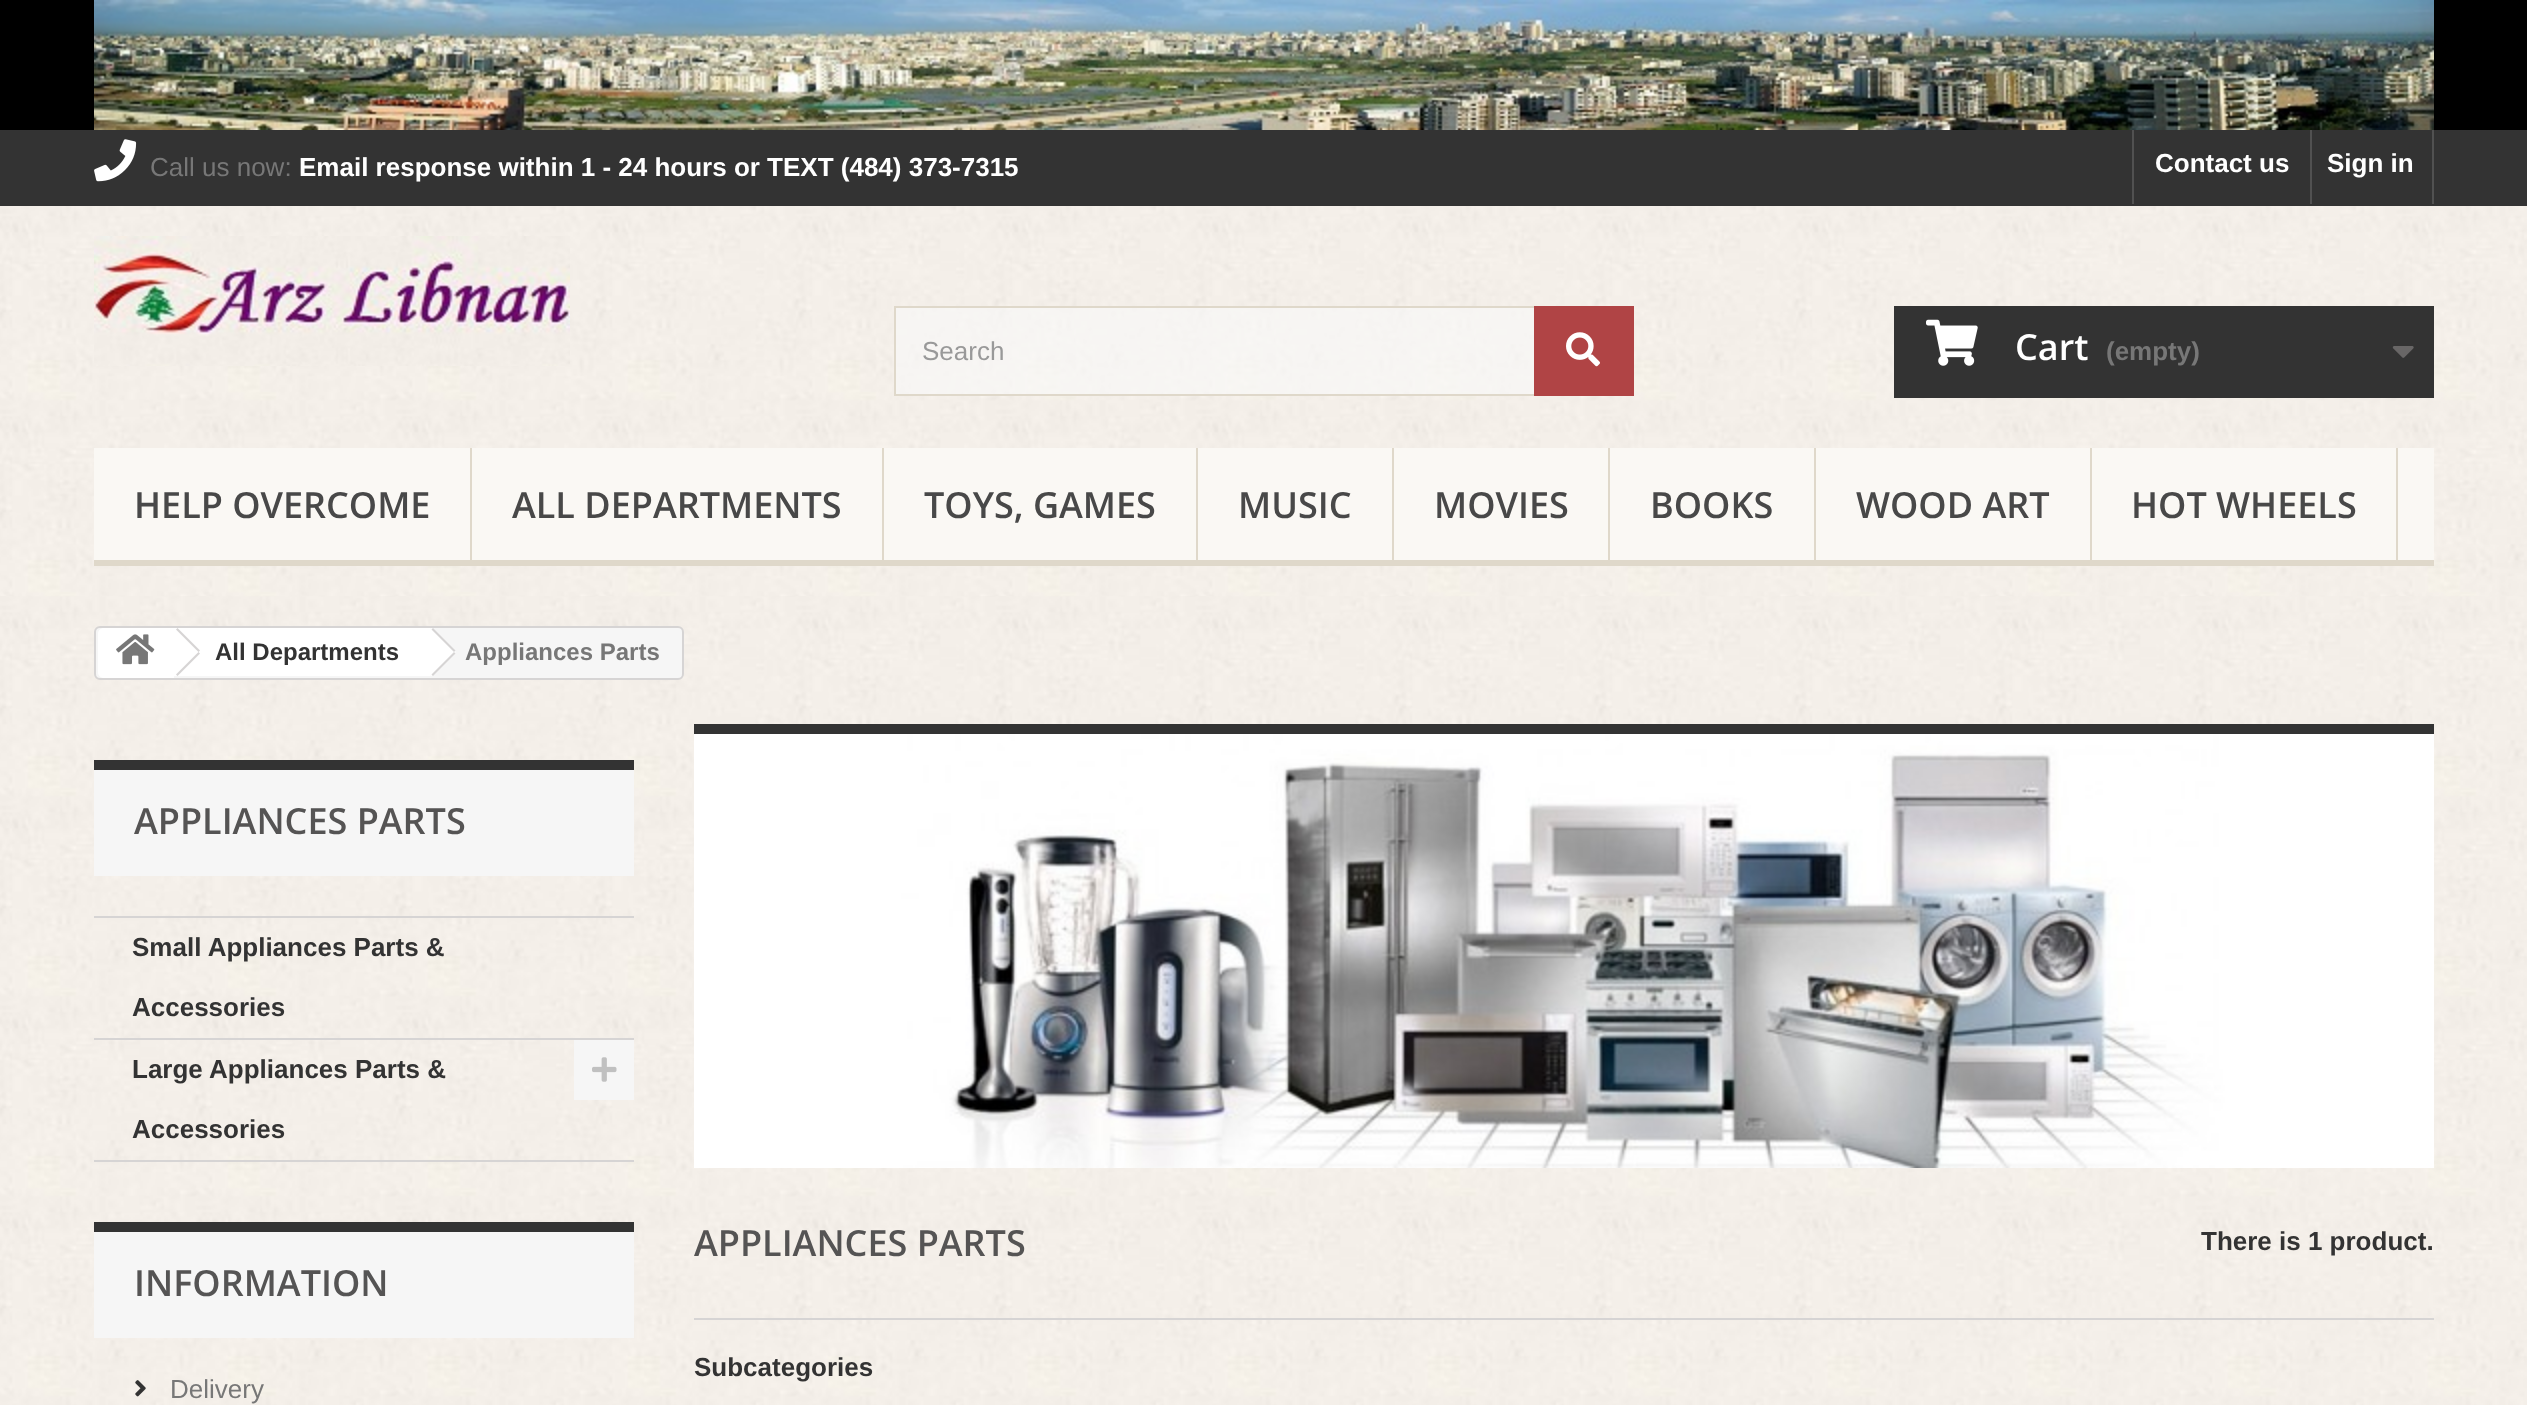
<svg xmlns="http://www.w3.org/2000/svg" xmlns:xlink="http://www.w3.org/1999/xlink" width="2527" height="1405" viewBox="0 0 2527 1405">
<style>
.cls-1{font:26px Liberation Sans;fill:#777777}
.cls-2{font:bold 26px Liberation Sans;fill:#ffffff}
.cls-3{font:26px Liberation Sans;fill:#999999}
.cls-4{font:600 36px Open Sans;fill:#ffffff}
.cls-5{font:bold 26px Liberation Sans;fill:#777777}
.cls-6{font:600 36px Open Sans;fill:#484848}
.cls-7{font:bold 24px Liberation Sans;fill:#333333}
.cls-8{font:bold 24px Liberation Sans;fill:#777777}
.cls-9{font:600 36px Open Sans;fill:#555454}
.cls-10{font:bold 26px Liberation Sans;fill:#333333}
</style>
<rect width="100%" height="100%" fill="#ffffff"/>
<image xlink:href="image0.png" x="0" y="206" width="2527" height="390"/>
<rect fill="#000000" x="0" y="0" width="2527" height="130"/>
<image xlink:href="image1.png" x="94" y="0" width="2340" height="130"/>
<rect fill="#333333" x="0" y="130" width="2527" height="76"/>
<image xlink:href="image2.png" x="94" y="139" width="43" height="43"/>
<rect fill="#515151" x="2132" y="130" width="2" height="74"/>
<rect fill="#515151" x="2432" y="130" width="2" height="74"/>
<rect fill="#515151" x="2310" y="130" width="2" height="74"/>
<image xlink:href="image3.png" x="94" y="236" width="476" height="130"/>
<rect fill="#f8f8f8" fill-opacity="0.63" x="896" y="308" width="638" height="86"/>
<rect fill="none" stroke="#dfd8ca" stroke-width="2" x="895" y="307" width="738" height="88"/>
<rect fill="#b04445" x="1534" y="306" width="100" height="90"/>
<image xlink:href="image4.png" x="1566" y="332" width="34" height="35"/>
<rect fill="#333333" x="1894" y="306" width="540" height="92"/>
<image xlink:href="image5.png" x="1926" y="319" width="52" height="47"/>
<image xlink:href="image6.png" x="2392" y="346" width="22" height="12"/>
<rect fill="#faf8f4" x="94" y="448" width="2340" height="112"/>
<rect fill="#dfd8ca" x="94" y="560" width="2340" height="6"/>
<rect fill="#dfd8ca" x="470" y="448" width="2" height="118"/>
<rect fill="#dfd8ca" x="882" y="448" width="2" height="118"/>
<rect fill="#dfd8ca" x="1196" y="448" width="2" height="118"/>
<rect fill="#dfd8ca" x="1392" y="448" width="2" height="118"/>
<rect fill="#dfd8ca" x="1608" y="448" width="2" height="118"/>
<rect fill="#dfd8ca" x="1814" y="448" width="2" height="118"/>
<rect fill="#dfd8ca" x="2090" y="448" width="2" height="118"/>
<rect fill="#dfd8ca" x="2396" y="448" width="2" height="118"/>
<image xlink:href="image7.png" x="0" y="596" width="2527" height="809"/>
<rect fill="#f6f6f6" stroke="#d6d4d4" stroke-width="2" x="95" y="627" width="588" height="52" rx="5"/>
<path fill="#ffffff" d="M104 628H174V678H104C100.5 678 98 675.5 98 672V634C98 630.5 100.5 628 104 628Z"/>
<image xlink:href="image8.png" x="116" y="634" width="39" height="31"/>
<rect fill="#ffffff" x="174" y="628" width="256" height="48"/>
<path fill="#d6d4d4" d="M177.5 628L200 650.5L198.5 652L176 629.5ZM198.5 652L200 653.5L177.5 676L176 674.5Z"/>
<path fill="#ffffff" d="M434 629L454 649C456 651 456 653 454 655L434 675C433 676 430 676 429 675L409 655C407 653 407 651 409 649L429 629C430 628 433 628 434 629Z"/>
<path fill="#d6d4d4" d="M433 628L455.5 650.5L454 652L431.5 629.5ZM454 652L455.5 653.5L433 676L431.5 674.5Z"/>
<rect fill="#f6f6f6" x="94" y="770" width="540" height="106"/>
<rect fill="#333333" x="94" y="760" width="540" height="10"/>
<rect fill="#d6d4d4" x="94" y="916" width="540" height="2"/>
<rect fill="#d6d4d4" x="94" y="1038" width="540" height="2"/>
<rect fill="#d6d4d4" x="94" y="1160" width="540" height="2"/>
<rect fill="#f6f6f6" x="574" y="1040" width="60" height="60"/>
<image xlink:href="image9.png" x="592" y="1057" width="25" height="25"/>
<rect fill="#f6f6f6" x="94" y="1232" width="540" height="106"/>
<rect fill="#333333" x="94" y="1222" width="540" height="10"/>
<image xlink:href="image10.png" x="135" y="1380" width="11" height="17"/>
<rect fill="#333333" x="694" y="724" width="1740" height="10"/>
<image xlink:href="image11.png" x="694" y="734" width="1740" height="434"/>
<rect fill="#d6d4d4" x="694" y="1318" width="1740" height="2"/>
<text class="cls-1" x="150" y="176">Call us now:</text>
<text class="cls-2" x="299" y="176">Email response within 1 - 24 hours or TEXT (484) 373-7315</text>
<text class="cls-2" x="2155" y="172">Contact us</text>
<text class="cls-2" x="2327" y="172">Sign in</text>
<text class="cls-3" x="922" y="360">Search</text>
<text class="cls-4" x="2015" y="360">Cart</text>
<text class="cls-5" x="2106" y="360">(empty)</text>
<text class="cls-6" x="134" y="518">HELP OVERCOME</text>
<text class="cls-6" x="512" y="518">ALL DEPARTMENTS</text>
<text class="cls-6" x="924" y="518">TOYS, GAMES</text>
<text class="cls-6" x="1238" y="518">MUSIC</text>
<text class="cls-6" x="1434" y="518">MOVIES</text>
<text class="cls-6" x="1650" y="518">BOOKS</text>
<text class="cls-6" x="1856" y="518">WOOD ART</text>
<text class="cls-6" x="2131" y="518">HOT WHEELS</text>
<text class="cls-7" x="215" y="660">All Departments</text>
<text class="cls-8" x="465" y="660">Appliances Parts</text>
<text class="cls-9" x="134" y="834">APPLIANCES PARTS</text>
<text class="cls-10" x="132" y="956">Small Appliances Parts &amp;</text>
<text class="cls-10" x="132" y="1016">Accessories</text>
<text class="cls-10" x="132" y="1078">Large Appliances Parts &amp;</text>
<text class="cls-10" x="132" y="1138">Accessories</text>
<text class="cls-9" x="134" y="1296">INFORMATION</text>
<text class="cls-1" x="170" y="1398">Delivery</text>
<text class="cls-9" x="694" y="1256">APPLIANCES PARTS</text>
<text class="cls-10" x="2201" y="1250">There is 1 product.</text>
<text class="cls-10" x="694" y="1376">Subcategories</text>
</svg>
